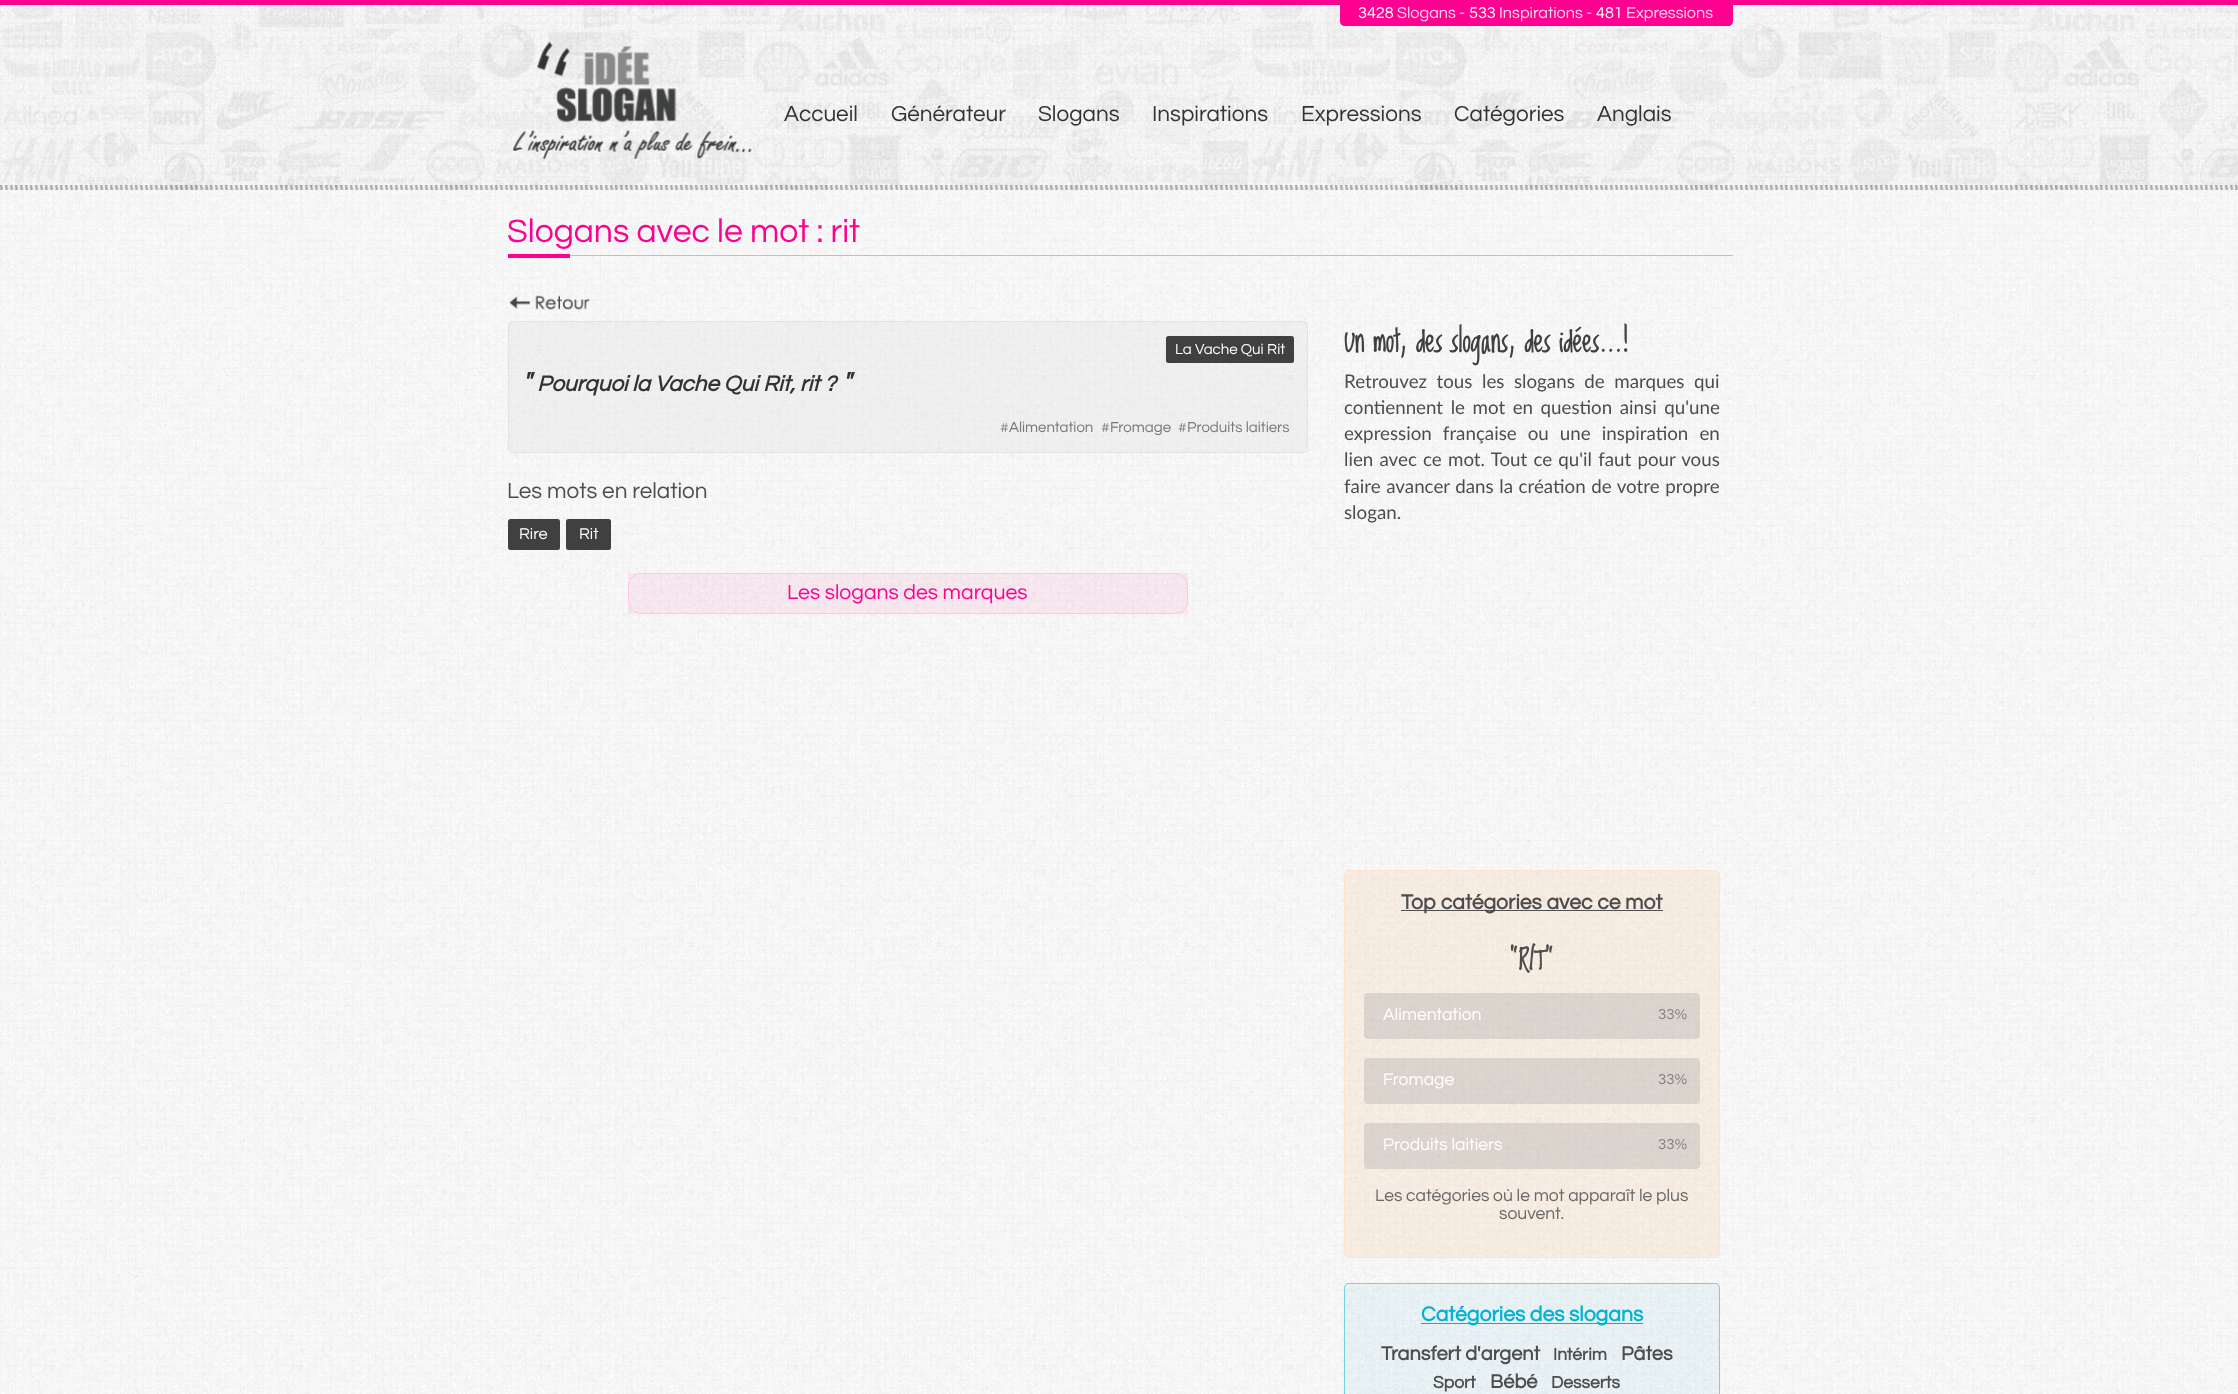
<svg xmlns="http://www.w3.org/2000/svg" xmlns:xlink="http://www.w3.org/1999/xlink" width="2238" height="1394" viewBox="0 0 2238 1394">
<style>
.cls-1{font:16.25px Questrial;fill:#ffffff}
.cls-2{font:16.25px Questrial;fill:#fbd6eb}
.cls-3{font:22.5px Questrial;fill:#333333}
.cls-4{font:33.75px Questrial;fill:#ff0090}
.cls-5{font:15px Questrial;fill:#ffffff}
.cls-6{font:italic bold 27.5px Questrial;fill:#333333}
.cls-7{font:italic bold 22.5px Questrial;fill:#333333}
.cls-8{font:15px Questrial;fill:#888888}
.cls-9{font:15px Questrial;fill:#777777}
.cls-10{font:22.5px Questrial;fill:#4d4d4d}
.cls-11{font:21.25px Questrial;fill:#ff0090}
.cls-12{font:bold 27.5px Loved by the King;fill:#3f4040}
.cls-13{font:18.75px Lato;fill:#4d4d4d}
.cls-14{font:bold 21.25px Questrial;fill:#4d4d4d}
.cls-15{font:bold 27.5px Loved by the King;fill:#4d4d4d}
.cls-16{font:17.5px Questrial;fill:#ffffff}
.cls-17{font:15px Questrial;fill:#7f7f7e}
.cls-18{font:17.5px Questrial;fill:#696969}
.cls-19{font:bold 21.25px Questrial;fill:#00b2d3}
.cls-20{font:bold 20px Questrial;fill:#4d4d4d}
.cls-21{font:bold 17.5px Questrial;fill:#4d4d4d}
</style>
<rect width="100%" height="100%" fill="#ffffff"/>
<image xlink:href="image0.png" x="0" y="5" width="2238" height="1389"/>
<image xlink:href="image1.png" x="0" y="5" width="2238" height="185"/>
<rect fill="#ff0090" x="0" y="0" width="2238" height="5"/>
<path fill="#ff0090" d="M1340 0H1733V21C1733 24 1731 26 1728 26H1345C1342 26 1340 24 1340 21Z"/>
<image xlink:href="image2.png" x="512" y="41" width="240" height="119"/>
<rect fill="#ffffff" fill-opacity="0.25" x="0" y="190" width="2238" height="1204"/>
<rect fill="#ff0090" x="508" y="254" width="62" height="4"/>
<rect fill="#c0c0c0" x="570" y="255" width="1163" height="1"/>
<image xlink:href="image3.png" x="509" y="295" width="82" height="15"/>
<rect fill="#e1e2e3" fill-opacity="0.33" x="508" y="321" width="800" height="132" rx="5"/>
<rect fill="none" stroke="#cccccc" stroke-opacity="0.33" x="508.5" y="321.5" width="799" height="131" rx="4.5"/>
<rect fill="#404040" x="1166" y="336" width="128" height="27" rx="2.5"/>
<rect fill="#404040" x="508" y="519" width="52" height="31" rx="2.5"/>
<rect fill="#404040" x="566" y="519" width="45" height="31" rx="2.5"/>
<rect fill="#ff0090" fill-opacity="0.06" x="628" y="573" width="560" height="41"/>
<rect fill="none" stroke="#ffc4e7" x="628.5" y="573.5" width="559" height="40" rx="12.5"/>
<rect fill="#f68214" fill-opacity="0.09" stroke="#ffe2c8" x="1344.5" y="870.5" width="375" height="387" rx="4.5"/>
<rect fill="#4d4d4d" x="1401" y="910" width="262" height="1"/>
<rect fill="#acacac" fill-opacity="0.36" x="1364" y="993" width="336" height="46" rx="4"/>
<rect fill="#acacac" fill-opacity="0.36" x="1364" y="1058" width="336" height="46" rx="4"/>
<rect fill="#acacac" fill-opacity="0.36" x="1364" y="1123" width="336" height="46" rx="4"/>
<rect fill="#00b2d3" fill-opacity="0.06" x="1344" y="1283" width="376" height="111"/>
<rect fill="none" stroke="#00b2d3" stroke-opacity="0.5" x="1344.5" y="1283.5" width="375" height="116" rx="4.5"/>
<rect fill="#00b2d3" x="1421" y="1323" width="222" height="1"/>
<text class="cls-1" x="1358" y="18">3428</text>
<text class="cls-2" x="1397" y="18">Slogans -</text>
<text class="cls-1" x="1469" y="18">533</text>
<text class="cls-2" x="1499" y="18">Inspirations -</text>
<text class="cls-1" x="1596" y="18">481</text>
<text class="cls-2" x="1626" y="18">Expressions</text>
<text class="cls-3" x="784" y="121">Accueil</text>
<text class="cls-3" x="891" y="121">Générateur</text>
<text class="cls-3" x="1038" y="121">Slogans</text>
<text class="cls-3" x="1152" y="121">Inspirations</text>
<text class="cls-3" x="1301" y="121">Expressions</text>
<text class="cls-3" x="1454" y="121">Catégories</text>
<text class="cls-3" x="1597" y="121">Anglais</text>
<text class="cls-4" x="507" y="242">Slogans avec le mot : rit</text>
<text class="cls-5" x="1175" y="354">La Vache Qui Rit</text>
<text class="cls-6" x="522" y="391">"</text>
<text class="cls-7" x="537" y="391">Pourquoi</text>
<text class="cls-7" x="632" y="391">la Vache Qui</text>
<text class="cls-7" x="763" y="391">Rit</text>
<text class="cls-7" x="790" y="391">, rit ?</text>
<text class="cls-6" x="842" y="391">"</text>
<text class="cls-8" x="1000" y="432">#</text>
<text class="cls-9" x="1009" y="432">Alimentation</text>
<text class="cls-8" x="1101" y="432">#</text>
<text class="cls-9" x="1110" y="432">Fromage</text>
<text class="cls-8" x="1178" y="432">#</text>
<text class="cls-9" x="1187" y="432">Produits laitiers</text>
<text class="cls-10" x="507" y="498">Les mots en relation</text>
<text class="cls-1" x="519" y="539">Rire</text>
<text class="cls-1" x="579" y="539">Rit</text>
<text class="cls-11" x="787" y="599">Les slogans des marques</text>
<text class="cls-12" x="1344" y="352">Un mot, des slogans, des idées...!</text>
<text class="cls-13"><tspan x="1344" y="388" word-spacing="4.75">Retrouvez tous les slogans de marques qui</tspan><tspan x="1344" y="414" word-spacing="2.75">contiennent le mot en question ainsi qu'une</tspan><tspan x="1344" y="440" word-spacing="6.25">expression française ou une inspiration en</tspan><tspan x="1344" y="466" word-spacing="1.4">lien avec ce mot. Tout ce qu'il faut pour vous</tspan><tspan x="1344" y="493" word-spacing="0.75">faire avancer dans la création de votre propre</tspan><tspan x="1344" y="519">slogan.</tspan></text>
<text class="cls-14" x="1401" y="909">Top catégories avec ce mot</text>
<text class="cls-15" x="1509" y="970">"RIT"</text>
<text class="cls-16" x="1383" y="1020">Alimentation</text>
<text class="cls-17" x="1658" y="1019">33%</text>
<text class="cls-16" x="1383" y="1085">Fromage</text>
<text class="cls-17" x="1658" y="1084">33%</text>
<text class="cls-16" x="1383" y="1150">Produits laitiers</text>
<text class="cls-17" x="1658" y="1149">33%</text>
<text class="cls-18" x="1375" y="1201">Les catégories où le mot apparaît le plus</text>
<text class="cls-18" x="1499" y="1219">souvent.</text>
<text class="cls-19" x="1421" y="1321">Catégories des slogans</text>
<text class="cls-20" x="1381" y="1360">Transfert d'argent</text>
<text class="cls-21" x="1553" y="1360">Intérim</text>
<text class="cls-20" x="1621" y="1360">Pâtes</text>
<text class="cls-21" x="1433" y="1388">Sport</text>
<text class="cls-20" x="1490" y="1388">Bébé</text>
<text class="cls-21" x="1551" y="1388">Desserts</text>
</svg>
